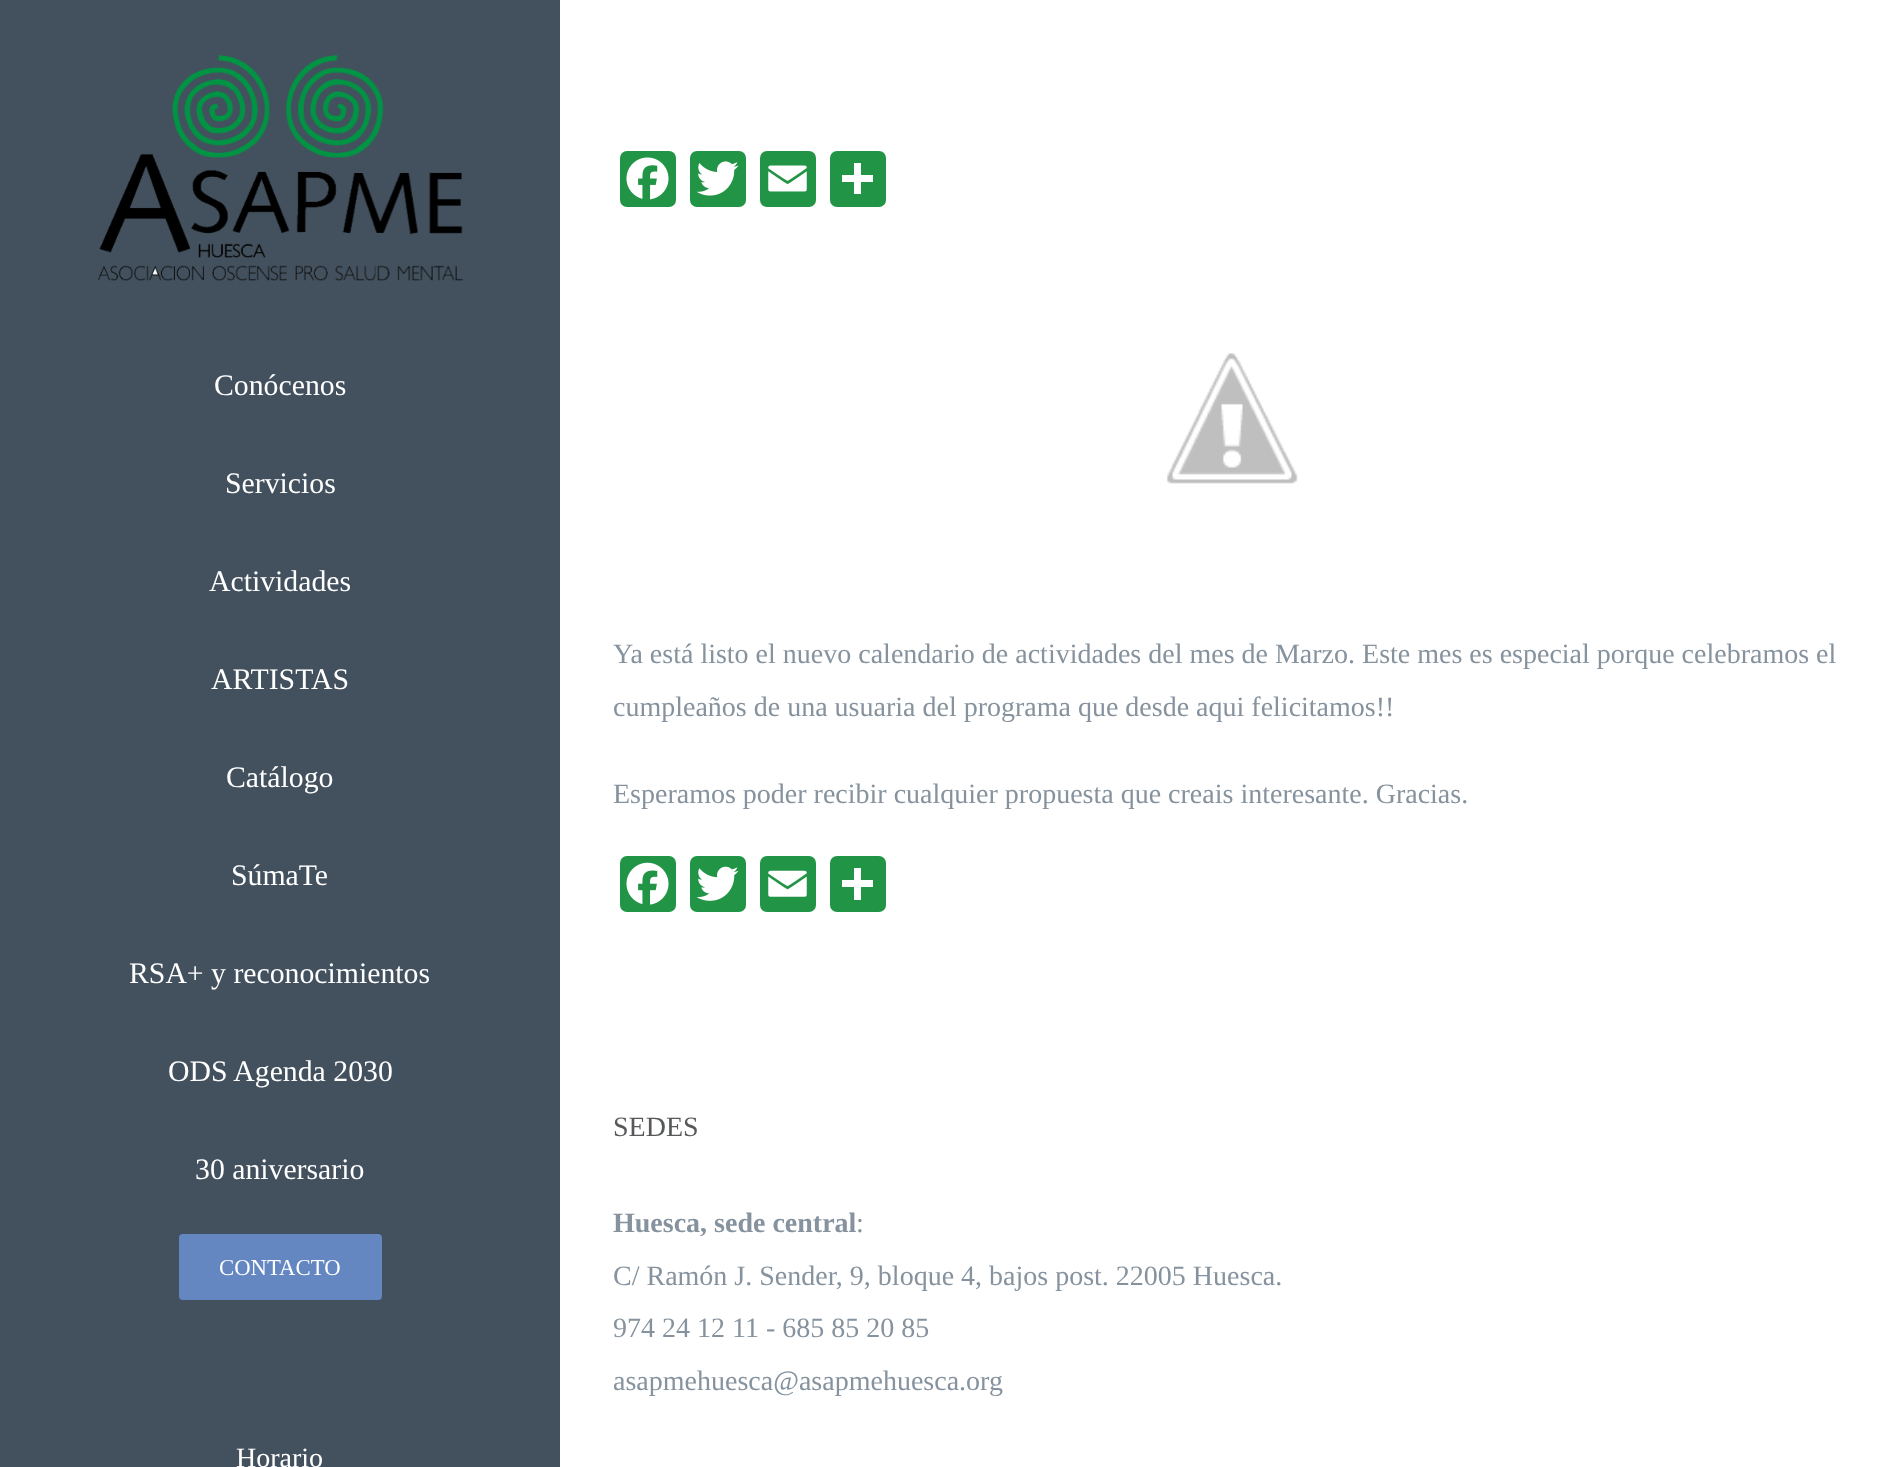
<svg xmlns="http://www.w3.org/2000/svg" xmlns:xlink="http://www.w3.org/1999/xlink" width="1904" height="1467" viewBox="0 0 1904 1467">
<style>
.cls-1{font:29.75px Liberation Serif;fill:#ffffff}
.cls-2{font:22.75px Liberation Serif;fill:#ffffff}
.cls-3{font:28px Liberation Serif;fill:#ffffff}
.cls-4{font:28px Liberation Serif;fill:#86939e}
.cls-5{font:28px Liberation Serif;fill:#56585a}
.cls-6{font:bold 28px Liberation Serif;fill:#86939e}
</style>
<rect width="100%" height="100%" fill="#ffffff"/>
<rect fill="#43515e" x="0" y="0" width="560" height="1467"/>
<image xlink:href="image0.png" x="98" y="55" width="366" height="226"/>
<rect fill="#6487c2" x="179" y="1234" width="203" height="66" rx="4"/>
<rect fill="#229446" x="620" y="151" width="56" height="56" rx="7"/>
<image xlink:href="image1.png" x="626" y="157" width="43" height="43"/>
<rect fill="#229446" x="690" y="151" width="56" height="56" rx="7"/>
<image xlink:href="image2.png" x="696" y="161" width="43" height="35"/>
<rect fill="#229446" x="760" y="151" width="56" height="56" rx="7"/>
<image xlink:href="image3.png" x="768" y="165" width="39" height="27"/>
<rect fill="#229446" x="830" y="151" width="56" height="56" rx="7"/>
<rect fill="#ffffff" x="854" y="163" width="7" height="31"/>
<rect fill="#ffffff" x="842" y="175" width="31" height="7"/>
<image xlink:href="image4.png" x="1167" y="353" width="131" height="131"/>
<rect fill="#229446" x="620" y="856" width="56" height="56" rx="7"/>
<image xlink:href="image5.png" x="626" y="862" width="43" height="43"/>
<rect fill="#229446" x="690" y="856" width="56" height="56" rx="7"/>
<image xlink:href="image6.png" x="696" y="866" width="43" height="35"/>
<rect fill="#229446" x="760" y="856" width="56" height="56" rx="7"/>
<image xlink:href="image7.png" x="768" y="870" width="39" height="27"/>
<rect fill="#229446" x="830" y="856" width="56" height="56" rx="7"/>
<rect fill="#ffffff" x="854" y="868" width="7" height="32"/>
<rect fill="#ffffff" x="842" y="880" width="31" height="7"/>
<text class="cls-1" x="214" y="395">Conócenos</text>
<text class="cls-1" x="225" y="493">Servicios</text>
<text class="cls-1" x="209" y="591">Actividades</text>
<text class="cls-1" x="211" y="689">ARTISTAS</text>
<text class="cls-1" x="226" y="787">Catálogo</text>
<text class="cls-1" x="231" y="885">SúmaTe</text>
<text class="cls-1" x="129" y="983">RSA+ y reconocimientos</text>
<text class="cls-1" x="168" y="1081">ODS Agenda 2030</text>
<text class="cls-1" x="195" y="1179">30 aniversario</text>
<text class="cls-2" x="219" y="1275">CONTACTO</text>
<text class="cls-3" x="236" y="1467">Horario</text>
<text class="cls-4"><tspan x="613" y="663">Ya está listo el nuevo calendario de actividades del mes de Marzo. Este mes es especial porque celebramos el</tspan><tspan x="613" y="716">cumpleaños de una usuaria del programa que desde aqui felicitamos!!</tspan></text>
<text class="cls-4" x="613" y="803">Esperamos poder recibir cualquier propuesta que creais interesante. Gracias.</text>
<text class="cls-5" x="613" y="1136">SEDES</text>
<text class="cls-6" x="613" y="1232">Huesca, sede central</text>
<text class="cls-4" x="856" y="1232">:</text>
<text class="cls-4"><tspan x="613" y="1285">C/ Ramón J. Sender, 9, bloque 4, bajos post. 22005 Huesca.</tspan><tspan x="613" y="1337">974 24 12 11 - 685 85 20 85</tspan><tspan x="613" y="1390">asapmehuesca@asapmehuesca.org</tspan></text>
</svg>
